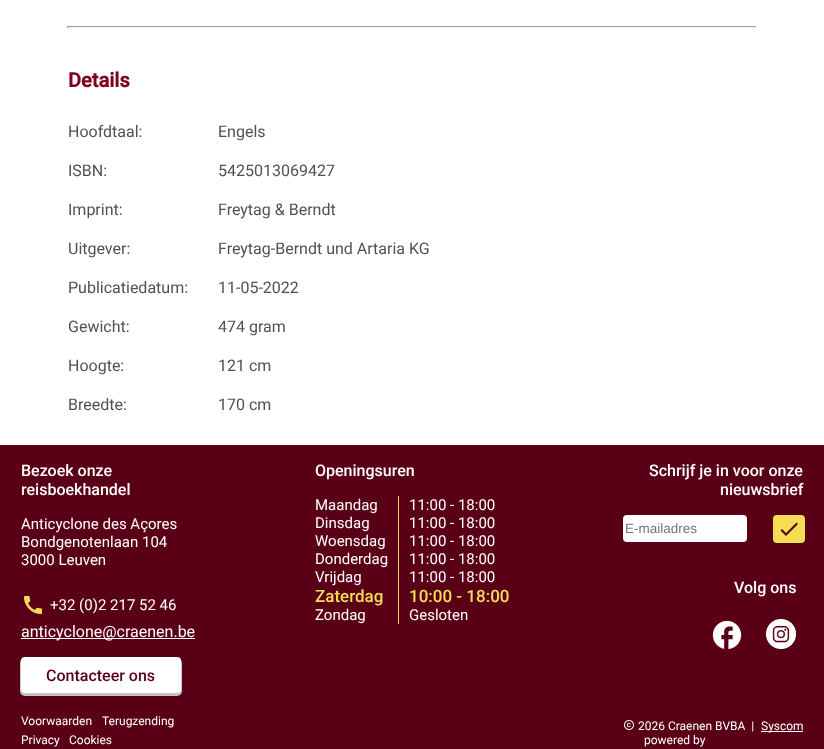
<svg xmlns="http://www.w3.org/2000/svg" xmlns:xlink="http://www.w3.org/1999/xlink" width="824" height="749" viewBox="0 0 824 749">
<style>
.cls-1{font:bold 20px Roboto;fill:#800020}
.cls-2{font:16px Roboto;fill:#515151}
.cls-3{font:500 16px Roboto;fill:#ffffff}
.cls-4{font:15px Roboto;fill:#ffffff}
.cls-5{font:16px Roboto;fill:#ffffff}
.cls-6{font:500 16px Roboto;fill:#5a0016}
.cls-7{font:12px Roboto;fill:#ffffff}
.cls-8{font:500 17px Roboto;fill:#f5dd56}
.cls-9{font:13.5px Liberation Sans;fill:#757575}
</style>
<rect width="100%" height="100%" fill="#ffffff"/>
<rect fill="#9f9f9f" x="67" y="26" width="690" height="1"/>
<rect fill="#eeeeee" x="756" y="26" width="1" height="2"/>
<rect fill="#eeeeee" x="67" y="27" width="690" height="1"/>
<rect fill="#9f9f9f" x="67" y="26" width="1" height="2"/>
<rect fill="#5a0016" x="0" y="445" width="824" height="304"/>
<image xlink:href="image0.png" x="24" y="596" width="18" height="18"/>
<rect fill="#ffffff" x="21" y="638" width="174" height="1"/>
<rect fill="#c5c5c5" filter="blur(0.5px)" x="20" y="658" width="162" height="38" rx="5"/>
<rect fill="#ffffff" x="21" y="657" width="160" height="36" rx="4"/>
<rect fill="#f5dd56" x="398" y="496" width="1" height="128"/>
<rect fill="#ffffff" x="623" y="515" width="124" height="27" rx="4"/>
<rect fill="#f5dd56" x="773" y="515" width="32" height="28" rx="4"/>
<path fill="#5a0016" d="M786 533L796.5 522.5L798 524L786 536L780.5 530.5L782 529Z"/>
<image xlink:href="image1.png" x="712" y="620" width="30" height="29"/>
<image xlink:href="image2.png" x="766" y="619" width="30" height="30"/>
<image xlink:href="image3.png" x="624" y="720" width="10" height="10"/>
<rect fill="#ffffff" x="761" y="731" width="42" height="1"/>
<text class="cls-1" x="68" y="87">Details</text>
<text class="cls-2" x="68" y="137">Hoofdtaal:</text>
<text class="cls-2" x="218" y="137">Engels</text>
<text class="cls-2" x="68" y="176">ISBN:</text>
<text class="cls-2" x="218" y="176">5425013069427</text>
<text class="cls-2" x="68" y="215">Imprint:</text>
<text class="cls-2" x="218" y="215">Freytag &amp; Berndt</text>
<text class="cls-2" x="68" y="254">Uitgever:</text>
<text class="cls-2" x="218" y="254">Freytag-Berndt und Artaria KG</text>
<text class="cls-2" x="68" y="293">Publicatiedatum:</text>
<text class="cls-2" x="218" y="293">11-05-2022</text>
<text class="cls-2" x="68" y="332">Gewicht:</text>
<text class="cls-2" x="218" y="332">474 gram</text>
<text class="cls-2" x="68" y="371">Hoogte:</text>
<text class="cls-2" x="218" y="371">121 cm</text>
<text class="cls-2" x="68" y="410">Breedte:</text>
<text class="cls-2" x="218" y="410">170 cm</text>
<text class="cls-3"><tspan x="21" y="476">Bezoek onze</tspan><tspan x="21" y="495">reisboekhandel</tspan></text>
<text class="cls-4"><tspan x="21" y="529">Anticyclone des Açores</tspan><tspan x="21" y="547">Bondgenotenlaan 104</tspan><tspan x="21" y="565">3000 Leuven</tspan></text>
<text class="cls-4" x="50" y="610">+32 (0)2 217 52 46</text>
<text class="cls-5" x="21" y="637">anticyclone@craenen.be</text>
<text class="cls-6" x="46" y="681">Contacteer ons</text>
<text class="cls-7" x="21" y="725">Voorwaarden</text>
<text class="cls-7" x="102" y="725">Terugzending</text>
<text class="cls-7" x="21" y="744">Privacy</text>
<text class="cls-7" x="69" y="744">Cookies</text>
<text class="cls-3" x="315" y="476">Openingsuren</text>
<text class="cls-4"><tspan x="315" y="510">Maandag</tspan><tspan x="315" y="528">Dinsdag</tspan><tspan x="315" y="546">Woensdag</tspan><tspan x="315" y="564">Donderdag</tspan><tspan x="315" y="582">Vrijdag</tspan></text>
<text class="cls-8" x="315" y="602">Zaterdag</text>
<text class="cls-4" x="315" y="620">Zondag</text>
<text class="cls-4"><tspan x="409" y="510">11:00 - 18:00</tspan><tspan x="409" y="528">11:00 - 18:00</tspan><tspan x="409" y="546">11:00 - 18:00</tspan><tspan x="409" y="564">11:00 - 18:00</tspan><tspan x="409" y="582">11:00 - 18:00</tspan></text>
<text class="cls-8" x="409" y="602">10:00 - 18:00</text>
<text class="cls-4" x="409" y="620">Gesloten</text>
<text class="cls-3" x="649" y="476">Schrijf je in voor onze</text>
<text class="cls-3" x="720" y="495">nieuwsbrief</text>
<text class="cls-9" x="625" y="533">E-mailadres</text>
<text class="cls-3" x="734" y="593">Volg ons</text>
<text class="cls-7" xml:space="preserve" x="638" y="730">2026 Craenen BVBA  |</text>
<text class="cls-7" x="761" y="730">Syscom</text>
<text class="cls-7" x="644" y="744">powered by</text>
</svg>
